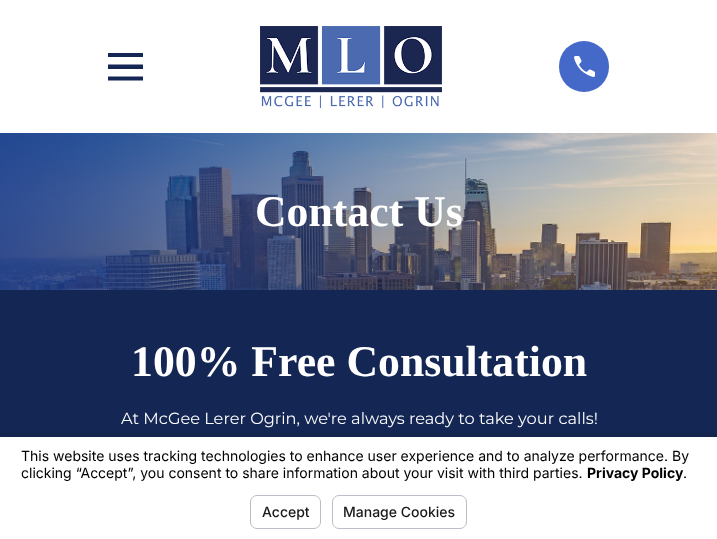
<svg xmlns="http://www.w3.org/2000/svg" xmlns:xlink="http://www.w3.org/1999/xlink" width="717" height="539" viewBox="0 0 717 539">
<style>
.cls-1{font:bold 43.75px Liberation Serif;fill:#ffffff}
.cls-2{font:16.2px Montserrat;fill:#ffffff}
.cls-3{font:14px Inter;fill:#000000}
.cls-4{font:bold 14px Inter;fill:#000000}
.cls-5{font:500 14px Inter;fill:#191919}
</style>
<defs>
<clipPath id="clip1"><rect x="108" y="49" width="35" height="36"/></clipPath>
</defs>
<rect width="100%" height="100%" fill="#ffffff"/>
<g clip-path="url(#clip1)">
<path fill="#142653" d="M108 53V57H143.5V53ZM108 64.5V69H143.5V64.5ZM108 76.5V80.5H143.5V76.5Z"/>
</g>
<image xlink:href="image0.png" x="260" y="26" width="182" height="82"/>
<rect fill="#4469c9" x="559" y="41" width="50" height="51" rx="25"/>
<image xlink:href="image1.png" x="574" y="56" width="21" height="21"/>
<image xlink:href="image2.png" x="0" y="133" width="717" height="157"/>
<rect fill="#142653" x="0" y="290" width="717" height="147"/>
<rect fill="#000000" fill-opacity="0.05" filter="blur(1.5px)" x="0" y="433" width="717" height="102"/>
<rect fill="#ffffff" x="0" y="437" width="717" height="99"/>
<rect fill="none" stroke="#bcbec7" x="250.5" y="495.5" width="70" height="33" rx="6.5"/>
<rect fill="none" stroke="#bcbec7" x="332.5" y="495.5" width="134" height="33" rx="6.5"/>
<text class="cls-1" x="255" y="226">Contact Us</text>
<text class="cls-1" x="131" y="376">100% Free Consultation</text>
<text class="cls-2" x="121" y="424">At McGee Lerer Ogrin, we're always ready to take your calls!</text>
<text class="cls-3"><tspan x="21" y="461">This website uses tracking technologies to enhance user experience and to analyze performance. By</tspan><tspan x="21" y="478">clicking “Accept”, you consent to share information about your visit with third parties.</tspan></text>
<text class="cls-4" x="587" y="478">Privacy Policy</text>
<text class="cls-3" x="683" y="478">.</text>
<text class="cls-5" x="262" y="517">Accept</text>
<text class="cls-5" x="343" y="517">Manage Cookies</text>
</svg>
